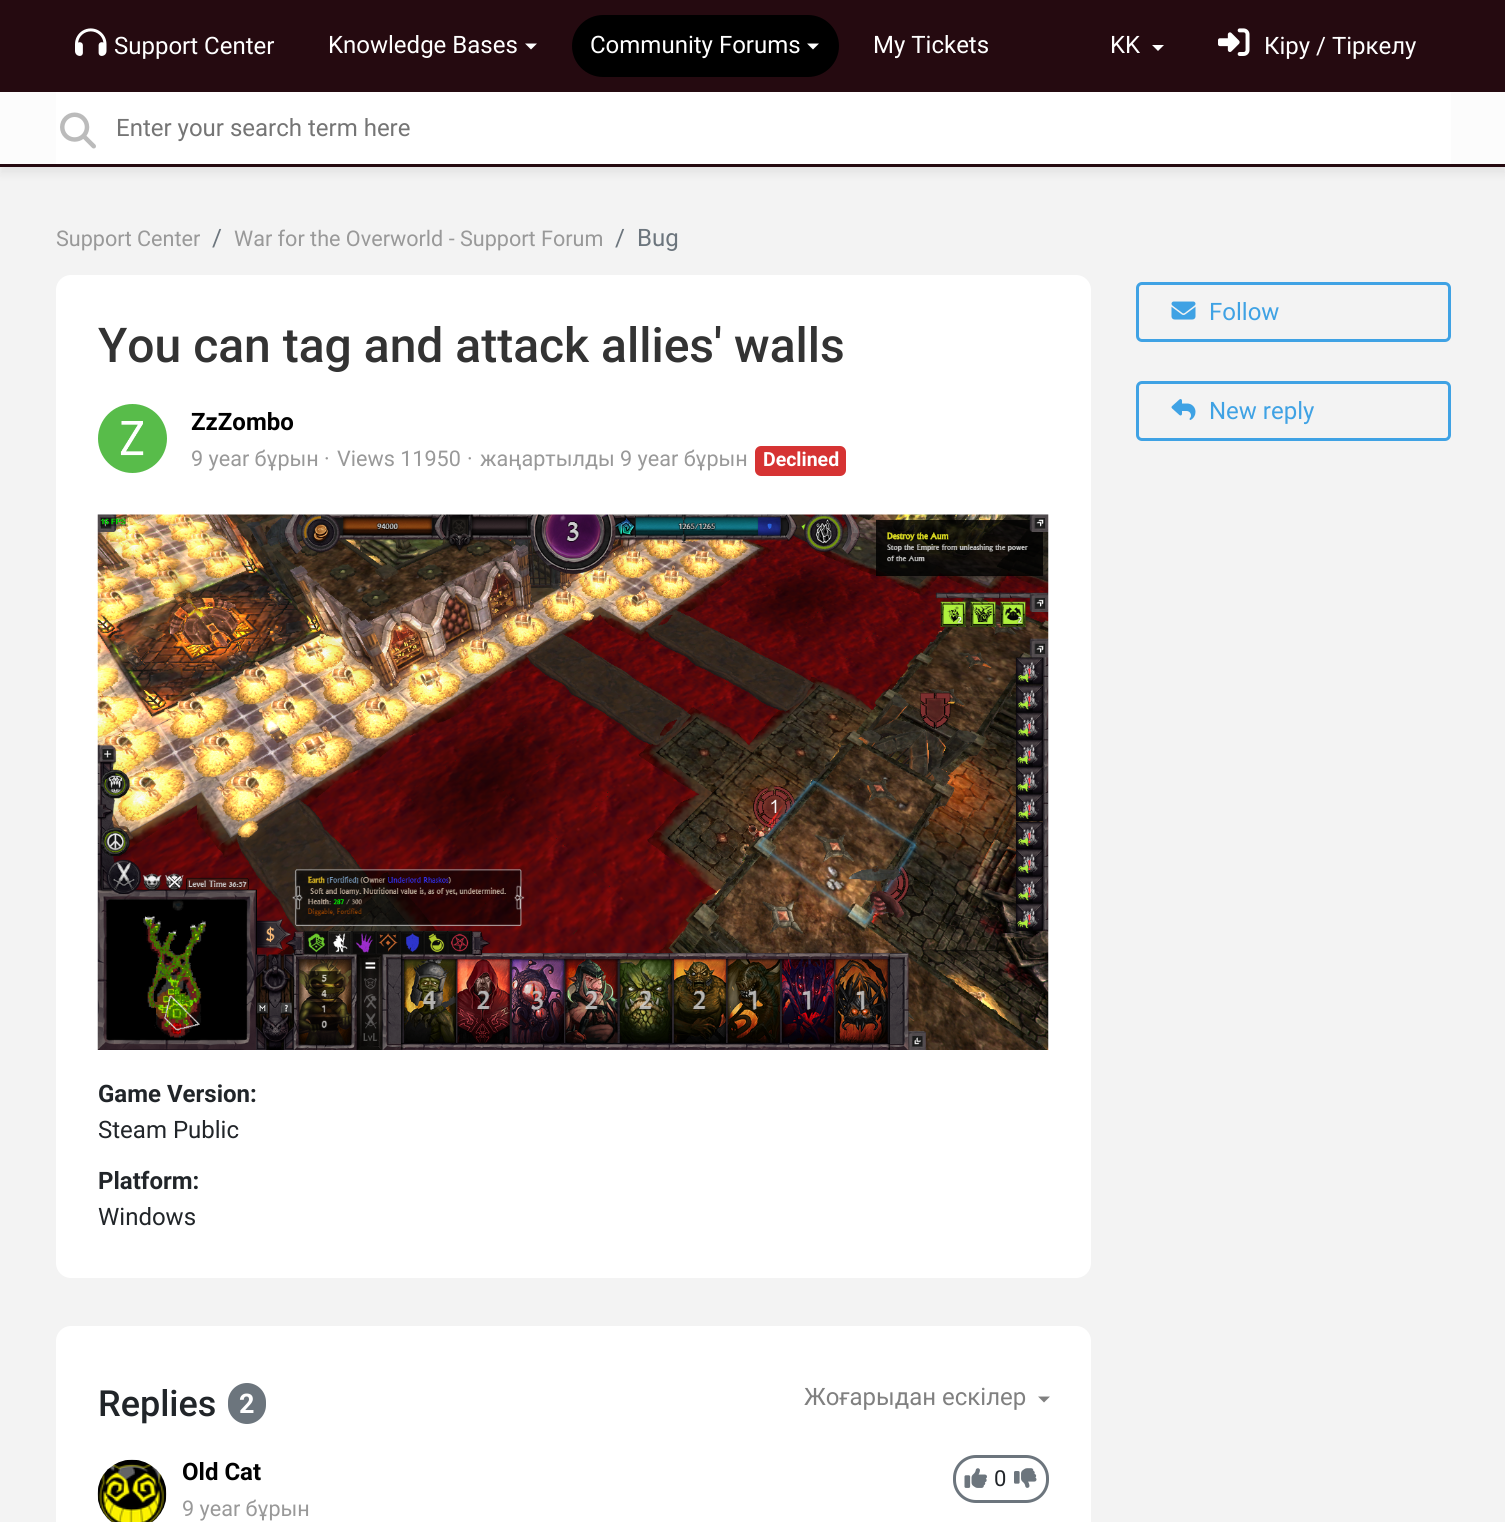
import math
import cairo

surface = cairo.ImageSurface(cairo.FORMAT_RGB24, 1505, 1522)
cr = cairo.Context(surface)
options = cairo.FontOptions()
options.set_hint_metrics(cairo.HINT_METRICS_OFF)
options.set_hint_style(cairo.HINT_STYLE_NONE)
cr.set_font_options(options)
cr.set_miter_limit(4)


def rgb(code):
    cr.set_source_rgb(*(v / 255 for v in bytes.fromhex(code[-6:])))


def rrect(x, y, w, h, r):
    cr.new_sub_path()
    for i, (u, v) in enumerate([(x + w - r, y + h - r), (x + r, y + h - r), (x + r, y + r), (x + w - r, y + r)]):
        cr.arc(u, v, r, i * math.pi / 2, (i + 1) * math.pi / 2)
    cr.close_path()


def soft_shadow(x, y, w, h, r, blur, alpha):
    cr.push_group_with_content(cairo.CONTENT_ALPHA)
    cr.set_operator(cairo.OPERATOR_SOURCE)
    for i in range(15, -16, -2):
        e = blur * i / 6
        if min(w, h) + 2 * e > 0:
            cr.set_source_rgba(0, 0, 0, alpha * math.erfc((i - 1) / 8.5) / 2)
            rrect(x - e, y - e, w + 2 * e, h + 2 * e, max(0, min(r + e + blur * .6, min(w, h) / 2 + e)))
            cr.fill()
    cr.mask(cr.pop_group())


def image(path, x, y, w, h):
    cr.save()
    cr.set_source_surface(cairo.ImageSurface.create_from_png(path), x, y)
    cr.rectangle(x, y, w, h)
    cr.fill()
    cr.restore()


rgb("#f3f3f3")
cr.paint()
rgb("#250a10")
cr.rectangle(0, 0, 1505, 92)
cr.fill()
image("img/1.png", 75, 28, 32, 28)
rgb("#ffffff")
cr.new_path()
cr.move_to(525, 43.5)
cr.line_to(537, 43.5)
cr.line_to(531, 49.5)
cr.close_path()
cr.fill()
rgb("#000000")
rrect(572, 15, 267, 62, 31)
cr.fill()
rgb("#ffffff")
cr.new_path()
cr.move_to(807, 43.5)
cr.line_to(819, 43.5)
cr.line_to(813, 49.5)
cr.close_path()
cr.fill()
cr.new_path()
cr.move_to(1152, 45)
cr.line_to(1164, 45)
cr.line_to(1158, 51)
cr.close_path()
cr.fill()
image("img/2.png", 1218, 28, 32, 28)
rgb("#646464")
soft_shadow(0, 99, 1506, 75, 0, 4, 0.1)
for x, y, w, h, color in [
    (0, 92, 1505, 72, "#fcfcfc"),
    (0, 164, 1505, 3, "#250a10"),
    (56, 92, 1395, 72, "#ffffff"),
]:
    rgb(color)
    cr.rectangle(x, y, w, h)
    cr.fill()
image("img/3.png", 60, 112, 36, 37)
rrect(56, 275, 1035, 1003, 15)
cr.fill()
rgb("#58bc4a")
cr.arc(132.5, 438.5, 34.5, 0, 2 * math.pi)
cr.fill()
image("img/4.png", 120, 421, 24, 35)
rgb("#d63333")
rrect(755, 446, 91, 30, 6)
cr.fill()
image("img/5.png", 97, 514, 952, 536)
rrect(1137.5, 283.5, 312, 57, 4.5)
rgb("#3fa2e4")
cr.set_line_width(3)
cr.stroke()
image("img/6.png", 1171, 301, 25, 19)
rrect(1137.5, 382.5, 312, 57, 4.5)
cr.stroke()
image("img/7.png", 1171, 399, 25, 21)
rgb("#ffffff")
rrect(56, 1326, 1035, 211, 15)
cr.fill()
rgb("#6c757d")
rrect(228, 1383, 38, 41, 19)
cr.fill()
rgb("#808080")
cr.new_path()
cr.move_to(1038, 1396.5)
cr.line_to(1050, 1396.5)
cr.line_to(1044, 1402.5)
cr.close_path()
cr.fill()
image("img/8.png", 97, 1459, 70, 63)
rrect(954.5, 1456.5, 93, 45, 21.5)
rgb("#6c757d")
cr.stroke()
image("img/9.png", 964, 1468, 23, 20)
image("img/10.png", 1014, 1468, 23, 20)
cr.select_font_face("Roboto")
cr.set_font_size(24)
rgb("#ffffff")
for x, y, s in [
    (114, 54, "Support Center"),
    (328, 53, "Knowledge Bases"),
    (590, 53, "Community Forums"),
    (873, 53, "My Tickets"),
    (1110, 53, "KK"),
    (1264, 54, "Кіру / Tiркелу"),
]:
    cr.move_to(x, y)
    cr.show_text(s)
rgb("#757575")
cr.move_to(116, 136)
cr.show_text("Enter your search term here")
cr.set_font_size(21.6)
rgb("#999999")
cr.move_to(56, 246)
cr.show_text("Support Center")
cr.set_font_size(24)
rgb("#6c757d")
cr.move_to(212, 246)
cr.show_text("/")
cr.set_font_size(21.6)
rgb("#999999")
cr.move_to(234, 246)
cr.show_text("War for the Overworld - Support Forum")
cr.set_font_size(24)
rgb("#6c757d")
cr.move_to(615, 246)
cr.show_text("/")
cr.move_to(637, 246)
cr.show_text("Bug")
cr.select_font_face("Roboto Medium")
cr.set_font_size(48)
rgb("#333333")
cr.move_to(98, 362)
cr.show_text("You can tag and attack allies' walls")
cr.select_font_face("Roboto", cairo.FONT_SLANT_NORMAL, cairo.FONT_WEIGHT_BOLD)
cr.set_font_size(24)
rgb("#000000")
cr.move_to(191, 430)
cr.show_text("ZzZombo")
cr.select_font_face("Roboto")
cr.set_font_size(21.6)
rgb("#999999")
for x, y, s in [
    (191, 466, "9 year бұрын"),
    (324, 466, "·"),
    (337, 466, "Views 11950"),
    (467, 466, "·"),
    (480, 466, "жаңартылды 9 year бұрын"),
]:
    cr.move_to(x, y)
    cr.show_text(s)
cr.select_font_face("Roboto", cairo.FONT_SLANT_NORMAL, cairo.FONT_WEIGHT_BOLD)
cr.set_font_size(19.5)
rgb("#ffffff")
cr.move_to(763, 466)
cr.show_text("Declined")
cr.set_font_size(24)
rgb("#212529")
cr.move_to(98, 1102)
cr.show_text("Game Version:")
cr.select_font_face("Roboto")
cr.move_to(98, 1138)
cr.show_text("Steam Public")
cr.select_font_face("Roboto", cairo.FONT_SLANT_NORMAL, cairo.FONT_WEIGHT_BOLD)
cr.move_to(98, 1189)
cr.show_text("Platform:")
cr.select_font_face("Roboto")
cr.move_to(98, 1225)
cr.show_text("Windows")
rgb("#3fa2e4")
cr.move_to(1209, 320)
cr.show_text("Follow")
cr.move_to(1209, 419)
cr.show_text("New reply")
cr.select_font_face("Roboto Medium")
cr.set_font_size(36)
rgb("#212529")
cr.move_to(98, 1416)
cr.show_text("Replies")
cr.select_font_face("Roboto", cairo.FONT_SLANT_NORMAL, cairo.FONT_WEIGHT_BOLD)
cr.set_font_size(27)
rgb("#ffffff")
cr.move_to(239, 1413)
cr.show_text("2")
cr.select_font_face("Roboto")
cr.set_font_size(24)
rgb("#808080")
cr.move_to(804, 1405)
cr.show_text("Жоғарыдан ескілер")
cr.select_font_face("Roboto", cairo.FONT_SLANT_NORMAL, cairo.FONT_WEIGHT_BOLD)
rgb("#000000")
cr.move_to(182, 1480)
cr.show_text("Old Cat")
cr.select_font_face("Roboto")
cr.set_font_size(21.6)
rgb("#999999")
cr.move_to(182, 1516)
cr.show_text("9 year бұрын")
cr.set_font_size(22)
rgb("#212529")
cr.move_to(994, 1486)
cr.show_text("0")
surface.write_to_png("page.png")
